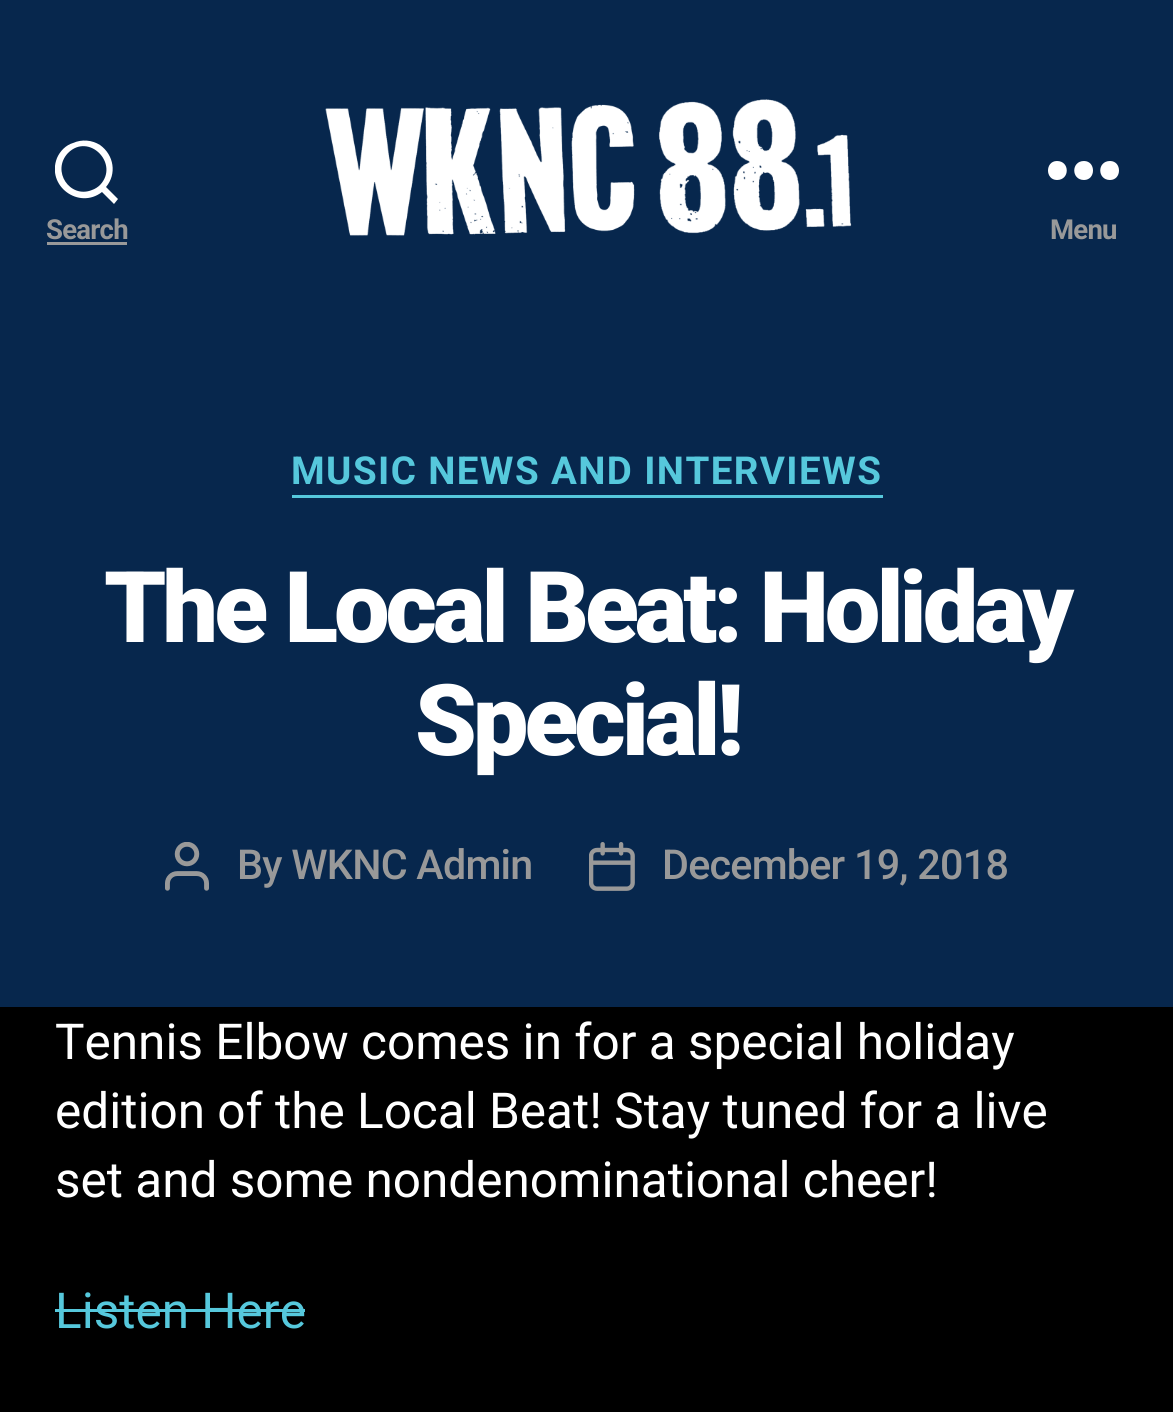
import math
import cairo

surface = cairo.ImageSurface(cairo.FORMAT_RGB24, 1173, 1412)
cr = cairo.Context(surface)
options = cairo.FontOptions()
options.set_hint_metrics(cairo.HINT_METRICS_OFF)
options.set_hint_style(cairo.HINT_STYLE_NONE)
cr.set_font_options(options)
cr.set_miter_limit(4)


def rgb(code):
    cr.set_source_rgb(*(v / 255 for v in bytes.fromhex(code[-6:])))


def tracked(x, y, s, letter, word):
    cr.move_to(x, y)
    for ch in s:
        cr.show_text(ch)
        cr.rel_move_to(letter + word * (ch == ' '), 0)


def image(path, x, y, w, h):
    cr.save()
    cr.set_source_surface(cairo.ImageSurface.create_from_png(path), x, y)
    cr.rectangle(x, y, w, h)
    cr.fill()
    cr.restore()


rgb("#000000")
cr.paint()
rgb("#07274d")
cr.rectangle(0, 0, 1173, 1007)
cr.fill()
cr.save()
cr.rectangle(55, 138, 63, 68)
cr.clip()
rgb("#ffffff")
cr.new_path()
cr.move_to(106, 187)
cr.line_to(118, 199)
cr.line_to(114, 204)
cr.line_to(102, 192)
cr.curve_to(79, 210, 46, 186, 57, 158)
cr.curve_to(60, 151, 66, 145, 73, 143)
cr.curve_to(82, 139, 92, 140, 100, 145)
cr.curve_to(114, 155, 117, 174, 106, 187)
cr.close_path()
cr.move_to(100, 185)
cr.curve_to(120, 164, 89, 132, 68, 153)
cr.curve_to(51, 171, 70, 199, 92, 190)
cr.curve_to(95, 189, 98, 187, 100, 185)
cr.close_path()
cr.fill()
cr.restore()
rgb("#999999")
cr.rectangle(47, 242, 80, 3)
cr.fill()
image("img/1.png", 325, 99, 527, 137)
rgb("#ffffff")
cr.set_fill_rule(cairo.FILL_RULE_EVEN_ODD)
cr.new_path()
cr.move_to(1057, 180)
cr.curve_to(1045, 180, 1045, 161, 1057, 161)
cr.curve_to(1070, 161, 1070, 180, 1057, 180)
cr.close_path()
cr.move_to(1084, 180)
cr.curve_to(1071, 180, 1071, 161, 1084, 161)
cr.curve_to(1096, 161, 1096, 180, 1084, 180)
cr.close_path()
cr.move_to(1110, 180)
cr.curve_to(1097, 180, 1097, 161, 1110, 161)
cr.curve_to(1122, 161, 1122, 180, 1110, 180)
cr.close_path()
cr.fill()
rgb("#56c8dc")
cr.rectangle(292, 495, 591, 3)
cr.fill()
image("img/2.png", 165, 842, 44, 49)
image("img/3.png", 589, 842, 46, 49)
cr.rectangle(55, 1309, 250, 3)
cr.fill()
cr.select_font_face("Roboto", cairo.FONT_SLANT_NORMAL, cairo.FONT_WEIGHT_BOLD)
cr.set_font_size(27.5)
rgb("#999999")
tracked(46, 239, "Search", -0.75, 0)
tracked(1050, 239, "Menu", -0.75, 0)
cr.set_font_size(38.5)
rgb("#56c8dc")
tracked(291, 484, "MUSIC NEWS AND INTERVIEWS", 1.4, 0)
cr.select_font_face("Roboto Black")
cr.set_font_size(99)
rgb("#ffffff")
tracked(104, 642, "The Local Beat: Holiday", -4.1, 0)
tracked(415, 755, "Special!", -4.1, 0)
cr.select_font_face("Roboto Medium")
cr.set_font_size(41.25)
rgb("#999999")
tracked(237, 879, "By WKNC Admin", -0.75, 0)
tracked(662, 879, "December 19, 2018", -0.75, 0)
cr.select_font_face("Roboto")
cr.set_font_size(49.5)
rgb("#ffffff")
for x, y, s in [
    (55, 1059, "Tennis Elbow comes in for a special holiday"),
    (55, 1128, "edition of the Local Beat! Stay tuned for a live"),
    (55, 1197, "set and some nondenominational cheer!"),
]:
    cr.move_to(x, y)
    cr.show_text(s)
rgb("#56c8dc")
cr.move_to(55, 1328)
cr.show_text("Listen Here")
surface.write_to_png("page.png")
